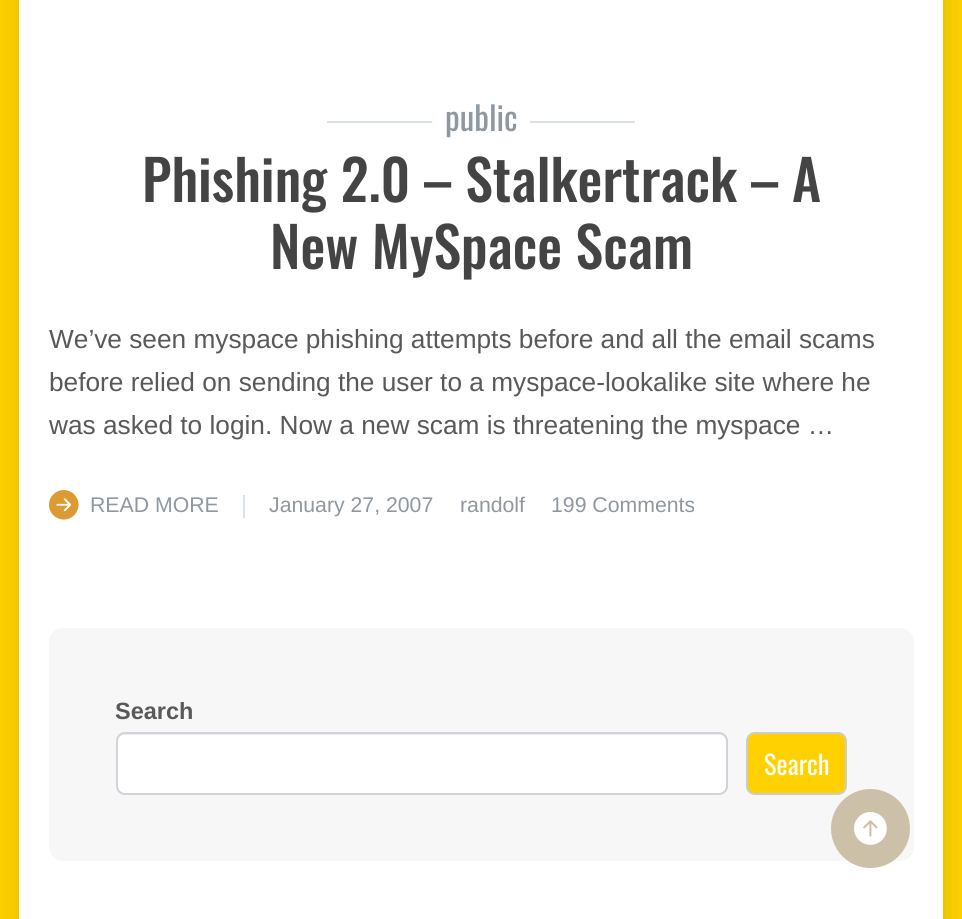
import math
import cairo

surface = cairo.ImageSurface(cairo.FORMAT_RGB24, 962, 919)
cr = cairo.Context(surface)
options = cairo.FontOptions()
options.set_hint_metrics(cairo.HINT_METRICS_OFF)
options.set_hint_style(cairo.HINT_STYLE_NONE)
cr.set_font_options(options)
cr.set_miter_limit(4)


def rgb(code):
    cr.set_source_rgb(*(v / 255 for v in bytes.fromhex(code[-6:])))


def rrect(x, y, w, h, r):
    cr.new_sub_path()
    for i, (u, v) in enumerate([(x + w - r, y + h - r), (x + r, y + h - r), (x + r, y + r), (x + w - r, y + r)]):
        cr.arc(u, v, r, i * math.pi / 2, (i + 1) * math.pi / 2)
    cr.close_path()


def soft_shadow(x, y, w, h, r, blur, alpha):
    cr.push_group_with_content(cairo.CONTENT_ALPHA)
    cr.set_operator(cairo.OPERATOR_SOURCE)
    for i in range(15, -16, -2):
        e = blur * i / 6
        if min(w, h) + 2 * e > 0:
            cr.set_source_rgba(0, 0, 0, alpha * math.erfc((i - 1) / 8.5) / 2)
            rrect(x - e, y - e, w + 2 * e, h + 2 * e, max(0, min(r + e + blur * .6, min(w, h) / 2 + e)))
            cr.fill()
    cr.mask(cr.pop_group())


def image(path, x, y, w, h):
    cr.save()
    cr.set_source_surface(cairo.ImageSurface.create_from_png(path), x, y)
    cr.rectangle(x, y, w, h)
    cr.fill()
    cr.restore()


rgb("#ffd100")
cr.paint()
rgb("#000000")
soft_shadow(35, -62, 893, 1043, 0, 20.5, 0.27)
for x, y, w, h, color in [
    (19, 0, 924, 919, "#ffffff"),
    (327, 121, 105, 2, "#dae1e8"),
    (530, 121, 105, 2, "#dae1e8"),
]:
    rgb(color)
    cr.rectangle(x, y, w, h)
    cr.fill()
image("img/1.png", 49, 490, 30, 30)
cr.rectangle(243, 495, 2, 23)
cr.fill()
rgb("#f7f7f7")
rrect(49, 628, 865, 233, 14)
cr.fill()
rgb("#ffffff")
rrect(117, 733, 609, 60, 7)
cr.fill()
cr.set_source_rgba(0, 0, 0, 0.07)
cr.new_path()
cr.move_to(124, 735)
cr.line_to(720, 735)
cr.curve_to(723, 735, 726, 738, 726, 741)
cr.line_to(726, 740)
cr.curve_to(726, 736, 723, 733, 719, 733)
cr.line_to(124, 733)
cr.curve_to(120, 733, 117, 736, 117, 740)
cr.line_to(117, 741)
cr.curve_to(117, 738, 120, 735, 124, 735)
cr.close_path()
cr.fill()
rrect(117, 733, 610, 61, 8)
rgb("#ced4da")
cr.stroke()
rgb("#ffd100")
rrect(747, 733, 99, 61, 8)
cr.fill_preserve()
rgb("#cccccc")
cr.stroke()
rgb("#cdc0a9")
cr.arc(870.5, 828.5, 39.5, 0, 2 * math.pi)
cr.fill()
image("img/2.png", 854, 812, 33, 33)
cr.select_font_face("Oswald")
cr.set_font_size(33)
rgb("#8f97a0")
cr.move_to(445, 131)
cr.show_text("public")
cr.select_font_face("Oswald Medium")
cr.set_font_size(55.75)
rgb("#444444")
cr.move_to(142, 202)
cr.show_text("Phishing 2.0 – Stalkertrack – A")
cr.move_to(270, 269)
cr.show_text("New MySpace Scam")
cr.select_font_face("Liberation Sans")
cr.set_font_size(26.25)
rgb("#595959")
for x, y, s in [
    (49, 348, "We’ve seen myspace phishing attempts before and all the email scams"),
    (49, 391, "before relied on sending the user to a myspace-lookalike site where he"),
    (49, 434, "was asked to login. Now a new scam is threatening the myspace …"),
]:
    cr.move_to(x, y)
    cr.show_text(s)
cr.set_font_size(21.25)
rgb("#8f97a0")
for x, y, s in [
    (90, 512, "READ MORE"),
    (269, 512, "January 27, 2007"),
    (460, 512, "randolf"),
    (551, 512, "199 Comments"),
]:
    cr.move_to(x, y)
    cr.show_text(s)
cr.select_font_face("Liberation Sans", cairo.FONT_SLANT_NORMAL, cairo.FONT_WEIGHT_BOLD)
cr.set_font_size(23.5)
rgb("#595959")
cr.move_to(115, 719)
cr.show_text("Search")
cr.select_font_face("Oswald")
cr.set_font_size(26.25)
rgb("#ffffff")
cr.move_to(764, 775)
cr.show_text("Search")
surface.write_to_png("page.png")
